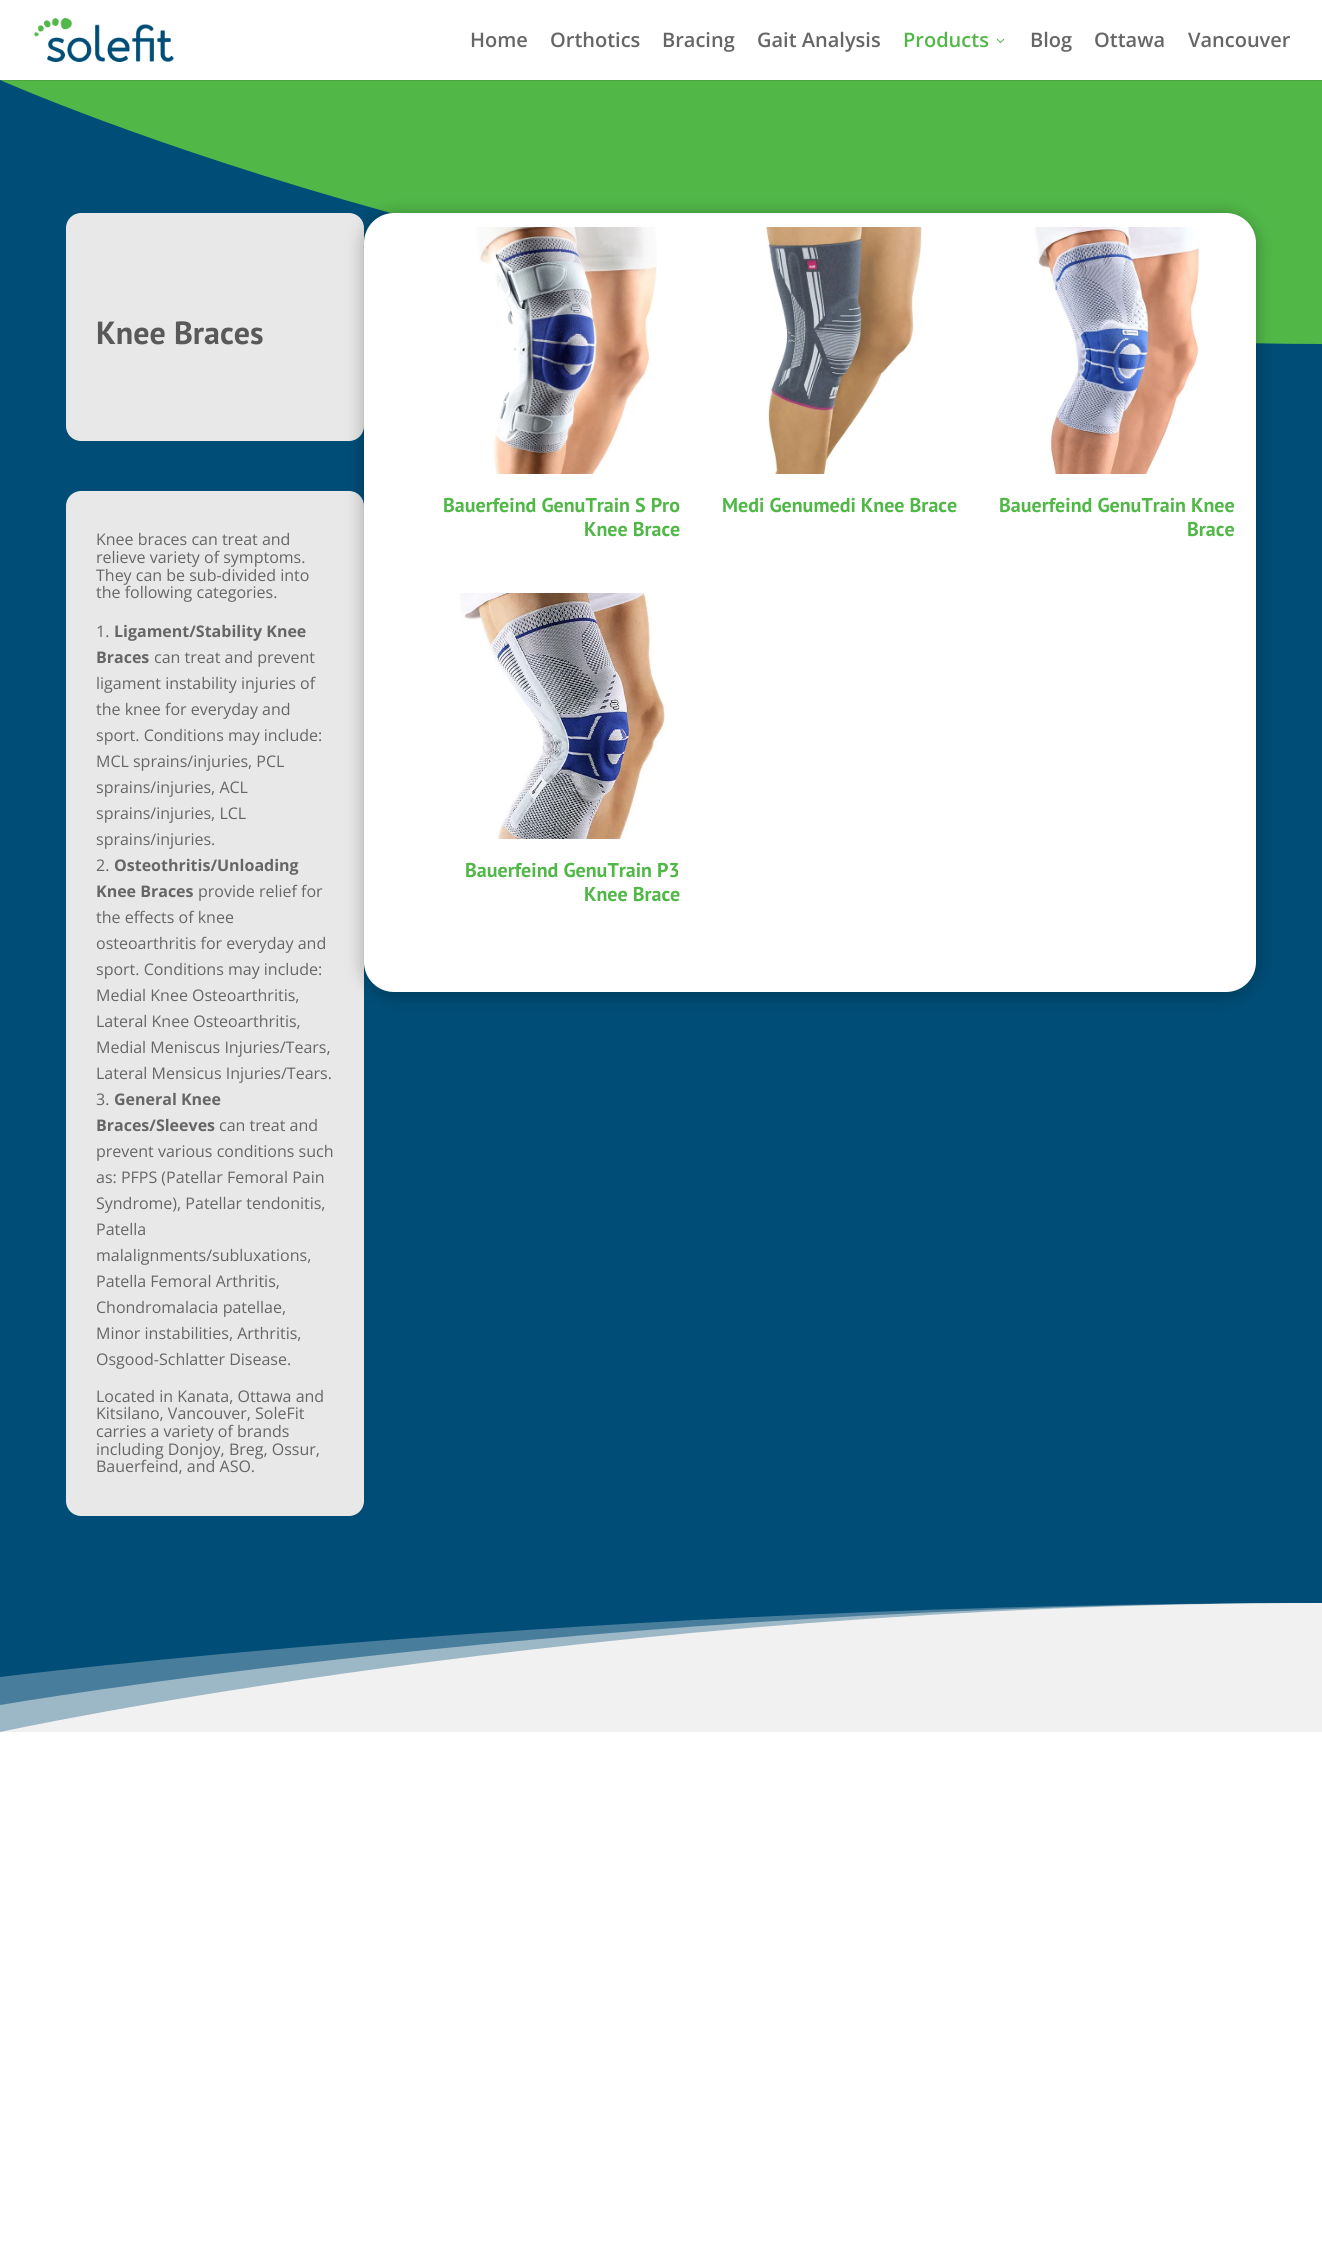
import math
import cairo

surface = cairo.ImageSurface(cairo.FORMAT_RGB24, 1322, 2246)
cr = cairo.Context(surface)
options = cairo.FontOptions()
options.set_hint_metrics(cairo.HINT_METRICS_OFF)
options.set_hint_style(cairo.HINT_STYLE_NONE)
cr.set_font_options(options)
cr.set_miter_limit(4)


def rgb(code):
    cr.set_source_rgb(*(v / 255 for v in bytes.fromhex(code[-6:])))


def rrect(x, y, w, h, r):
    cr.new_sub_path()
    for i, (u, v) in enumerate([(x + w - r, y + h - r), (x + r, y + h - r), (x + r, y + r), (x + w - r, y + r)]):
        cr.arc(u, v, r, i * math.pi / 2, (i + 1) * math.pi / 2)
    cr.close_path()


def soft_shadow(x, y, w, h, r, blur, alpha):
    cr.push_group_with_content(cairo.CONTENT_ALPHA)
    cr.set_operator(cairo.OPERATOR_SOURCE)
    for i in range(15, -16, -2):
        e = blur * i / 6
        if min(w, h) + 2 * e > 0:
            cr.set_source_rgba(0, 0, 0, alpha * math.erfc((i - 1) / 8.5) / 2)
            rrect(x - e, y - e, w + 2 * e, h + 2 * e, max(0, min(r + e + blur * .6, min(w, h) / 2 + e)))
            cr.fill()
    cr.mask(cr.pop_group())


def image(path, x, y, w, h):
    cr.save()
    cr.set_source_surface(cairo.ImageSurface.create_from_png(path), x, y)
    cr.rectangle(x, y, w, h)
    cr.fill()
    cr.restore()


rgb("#ffffff")
cr.paint()
rgb("#004d77")
cr.rectangle(0, 80, 1322, 1597)
cr.fill()
rgb("#51b848")
cr.new_path()
cr.move_to(0, 80)
cr.curve_to(0, 80, 592, 344, 1322, 344)
cr.line_to(1322, 80)
cr.close_path()
cr.fill()
cr.set_source_rgba(0, 0, 0, 0.1)
cr.rectangle(0, 80, 1322, 1)
cr.fill()
image("img/1.png", 34, 18, 140, 44)
image("img/2.png", 996, 38, 9, 5)
rgb("#e8e8e8")
rrect(66, 213, 298, 228, 15)
cr.fill()
rrect(66, 491, 298, 1025, 15)
cr.fill()
rgb("#000000")
soft_shadow(364, 215, 892, 779, 30, 9, 0.3)
rgb("#ffffff")
rrect(364, 213, 892, 779, 30)
cr.fill()
image("img/3.png", 476, 227, 181, 247)
image("img/4.png", 765, 227, 157, 247)
image("img/5.png", 1035, 227, 165, 247)
image("img/6.png", 459, 593, 208, 246)
rgb("#487e9c")
cr.new_path()
cr.move_to(0, 1732)
cr.line_to(0, 1677)
cr.curve_to(0, 1677, 592, 1603, 1322, 1603)
cr.line_to(1322, 1732)
cr.close_path()
cr.fill()
cr.set_source_rgba(0.945, 0.945, 0.945, 0.5)
cr.new_path()
cr.move_to(0, 1732)
cr.line_to(0, 1705)
cr.curve_to(0, 1705, 592, 1603, 1322, 1603)
cr.line_to(1322, 1732)
cr.close_path()
cr.fill()
rgb("#f1f1f1")
cr.new_path()
cr.move_to(0, 1732)
cr.curve_to(0, 1732, 592, 1603, 1322, 1603)
cr.line_to(1322, 1732)
cr.close_path()
cr.fill()
cr.select_font_face("Open Sans SemiBold")
cr.set_font_size(20)
rgb("#666666")
for x, y, s in [
    (470, 47, "Home"),
    (550, 47, "Orthotics"),
    (662, 47, "Bracing"),
    (757, 47, "Gait Analysis"),
]:
    cr.move_to(x, y)
    cr.show_text(s)
rgb("#51b848")
cr.move_to(903, 47)
cr.show_text("Products")
rgb("#666666")
for x, y, s in [
    (1030, 47, "Blog"),
    (1094, 47, "Ottawa"),
    (1188, 47, "Vancouver"),
]:
    cr.move_to(x, y)
    cr.show_text(s)
cr.select_font_face("PT Sans", cairo.FONT_SLANT_NORMAL, cairo.FONT_WEIGHT_BOLD)
cr.set_font_size(32)
rgb("#595959")
cr.move_to(96, 344)
cr.show_text("Knee Braces")
cr.select_font_face("Open Sans")
cr.set_font_size(16)
rgb("#666666")
for x, y, s in [
    (96, 545, "Knee braces can treat and"),
    (96, 563, "relieve variety of symptoms."),
    (96, 581, "They can be sub-divided into"),
    (96, 598, "the following categories."),
    (96, 637, "1."),
]:
    cr.move_to(x, y)
    cr.show_text(s)
cr.select_font_face("Open Sans", cairo.FONT_SLANT_NORMAL, cairo.FONT_WEIGHT_BOLD)
cr.move_to(114, 637)
cr.show_text("Ligament/Stability Knee")
cr.move_to(96, 663)
cr.show_text("Braces")
cr.select_font_face("Open Sans")
for x, y, s in [
    (154, 663, "can treat and prevent"),
    (96, 689, "ligament instability injuries of"),
    (96, 715, "the knee for everyday and"),
    (96, 741, "sport. Conditions may include:"),
    (96, 767, "MCL sprains/injuries, PCL"),
    (96, 793, "sprains/injuries, ACL"),
    (96, 819, "sprains/injuries, LCL"),
    (96, 845, "sprains/injuries."),
    (96, 871, "2."),
]:
    cr.move_to(x, y)
    cr.show_text(s)
cr.select_font_face("Open Sans", cairo.FONT_SLANT_NORMAL, cairo.FONT_WEIGHT_BOLD)
cr.move_to(114, 871)
cr.show_text("Osteothritis/Unloading")
cr.move_to(96, 897)
cr.show_text("Knee Braces")
cr.select_font_face("Open Sans")
for x, y, s in [
    (198, 897, "provide relief for"),
    (96, 923, "the effects of knee"),
    (96, 949, "osteoarthritis for everyday and"),
    (96, 975, "sport. Conditions may include:"),
    (96, 1001, "Medial Knee Osteoarthritis,"),
    (96, 1027, "Lateral Knee Osteoarthritis,"),
    (96, 1053, "Medial Meniscus Injuries/Tears,"),
    (96, 1079, "Lateral Mensicus Injuries/Tears."),
    (96, 1105, "3."),
]:
    cr.move_to(x, y)
    cr.show_text(s)
cr.select_font_face("Open Sans", cairo.FONT_SLANT_NORMAL, cairo.FONT_WEIGHT_BOLD)
cr.move_to(114, 1105)
cr.show_text("General Knee")
cr.move_to(96, 1131)
cr.show_text("Braces/Sleeves")
cr.select_font_face("Open Sans")
for x, y, s in [
    (219, 1131, "can treat and"),
    (96, 1157, "prevent various conditions such"),
    (96, 1183, "as: PFPS (Patellar Femoral Pain"),
    (96, 1209, "Syndrome), Patellar tendonitis,"),
    (96, 1235, "Patella"),
    (96, 1261, "malalignments/subluxations,"),
    (96, 1287, "Patella Femoral Arthritis,"),
    (96, 1313, "Chondromalacia patellae,"),
    (96, 1339, "Minor instabilities, Arthritis,"),
    (96, 1365, "Osgood-Schlatter Disease."),
    (96, 1402, "Located in Kanata, Ottawa and"),
    (96, 1419, "Kitsilano, Vancouver, SoleFit"),
    (96, 1437, "carries a variety of brands"),
    (96, 1455, "including Donjoy, Breg, Ossur,"),
    (96, 1472, "Bauerfeind, and ASO."),
]:
    cr.move_to(x, y)
    cr.show_text(s)
cr.select_font_face("PT Sans", cairo.FONT_SLANT_NORMAL, cairo.FONT_WEIGHT_BOLD)
cr.set_font_size(20)
rgb("#51b848")
for x, y, s in [
    (443, 512, "Bauerfeind GenuTrain S Pro"),
    (584, 536, "Knee Brace"),
    (722, 512, "Medi Genumedi Knee Brace"),
    (999, 512, "Bauerfeind GenuTrain Knee"),
    (1187, 536, "Brace"),
    (465, 877, "Bauerfeind GenuTrain P3"),
    (584, 901, "Knee Brace"),
]:
    cr.move_to(x, y)
    cr.show_text(s)
surface.write_to_png("page.png")
